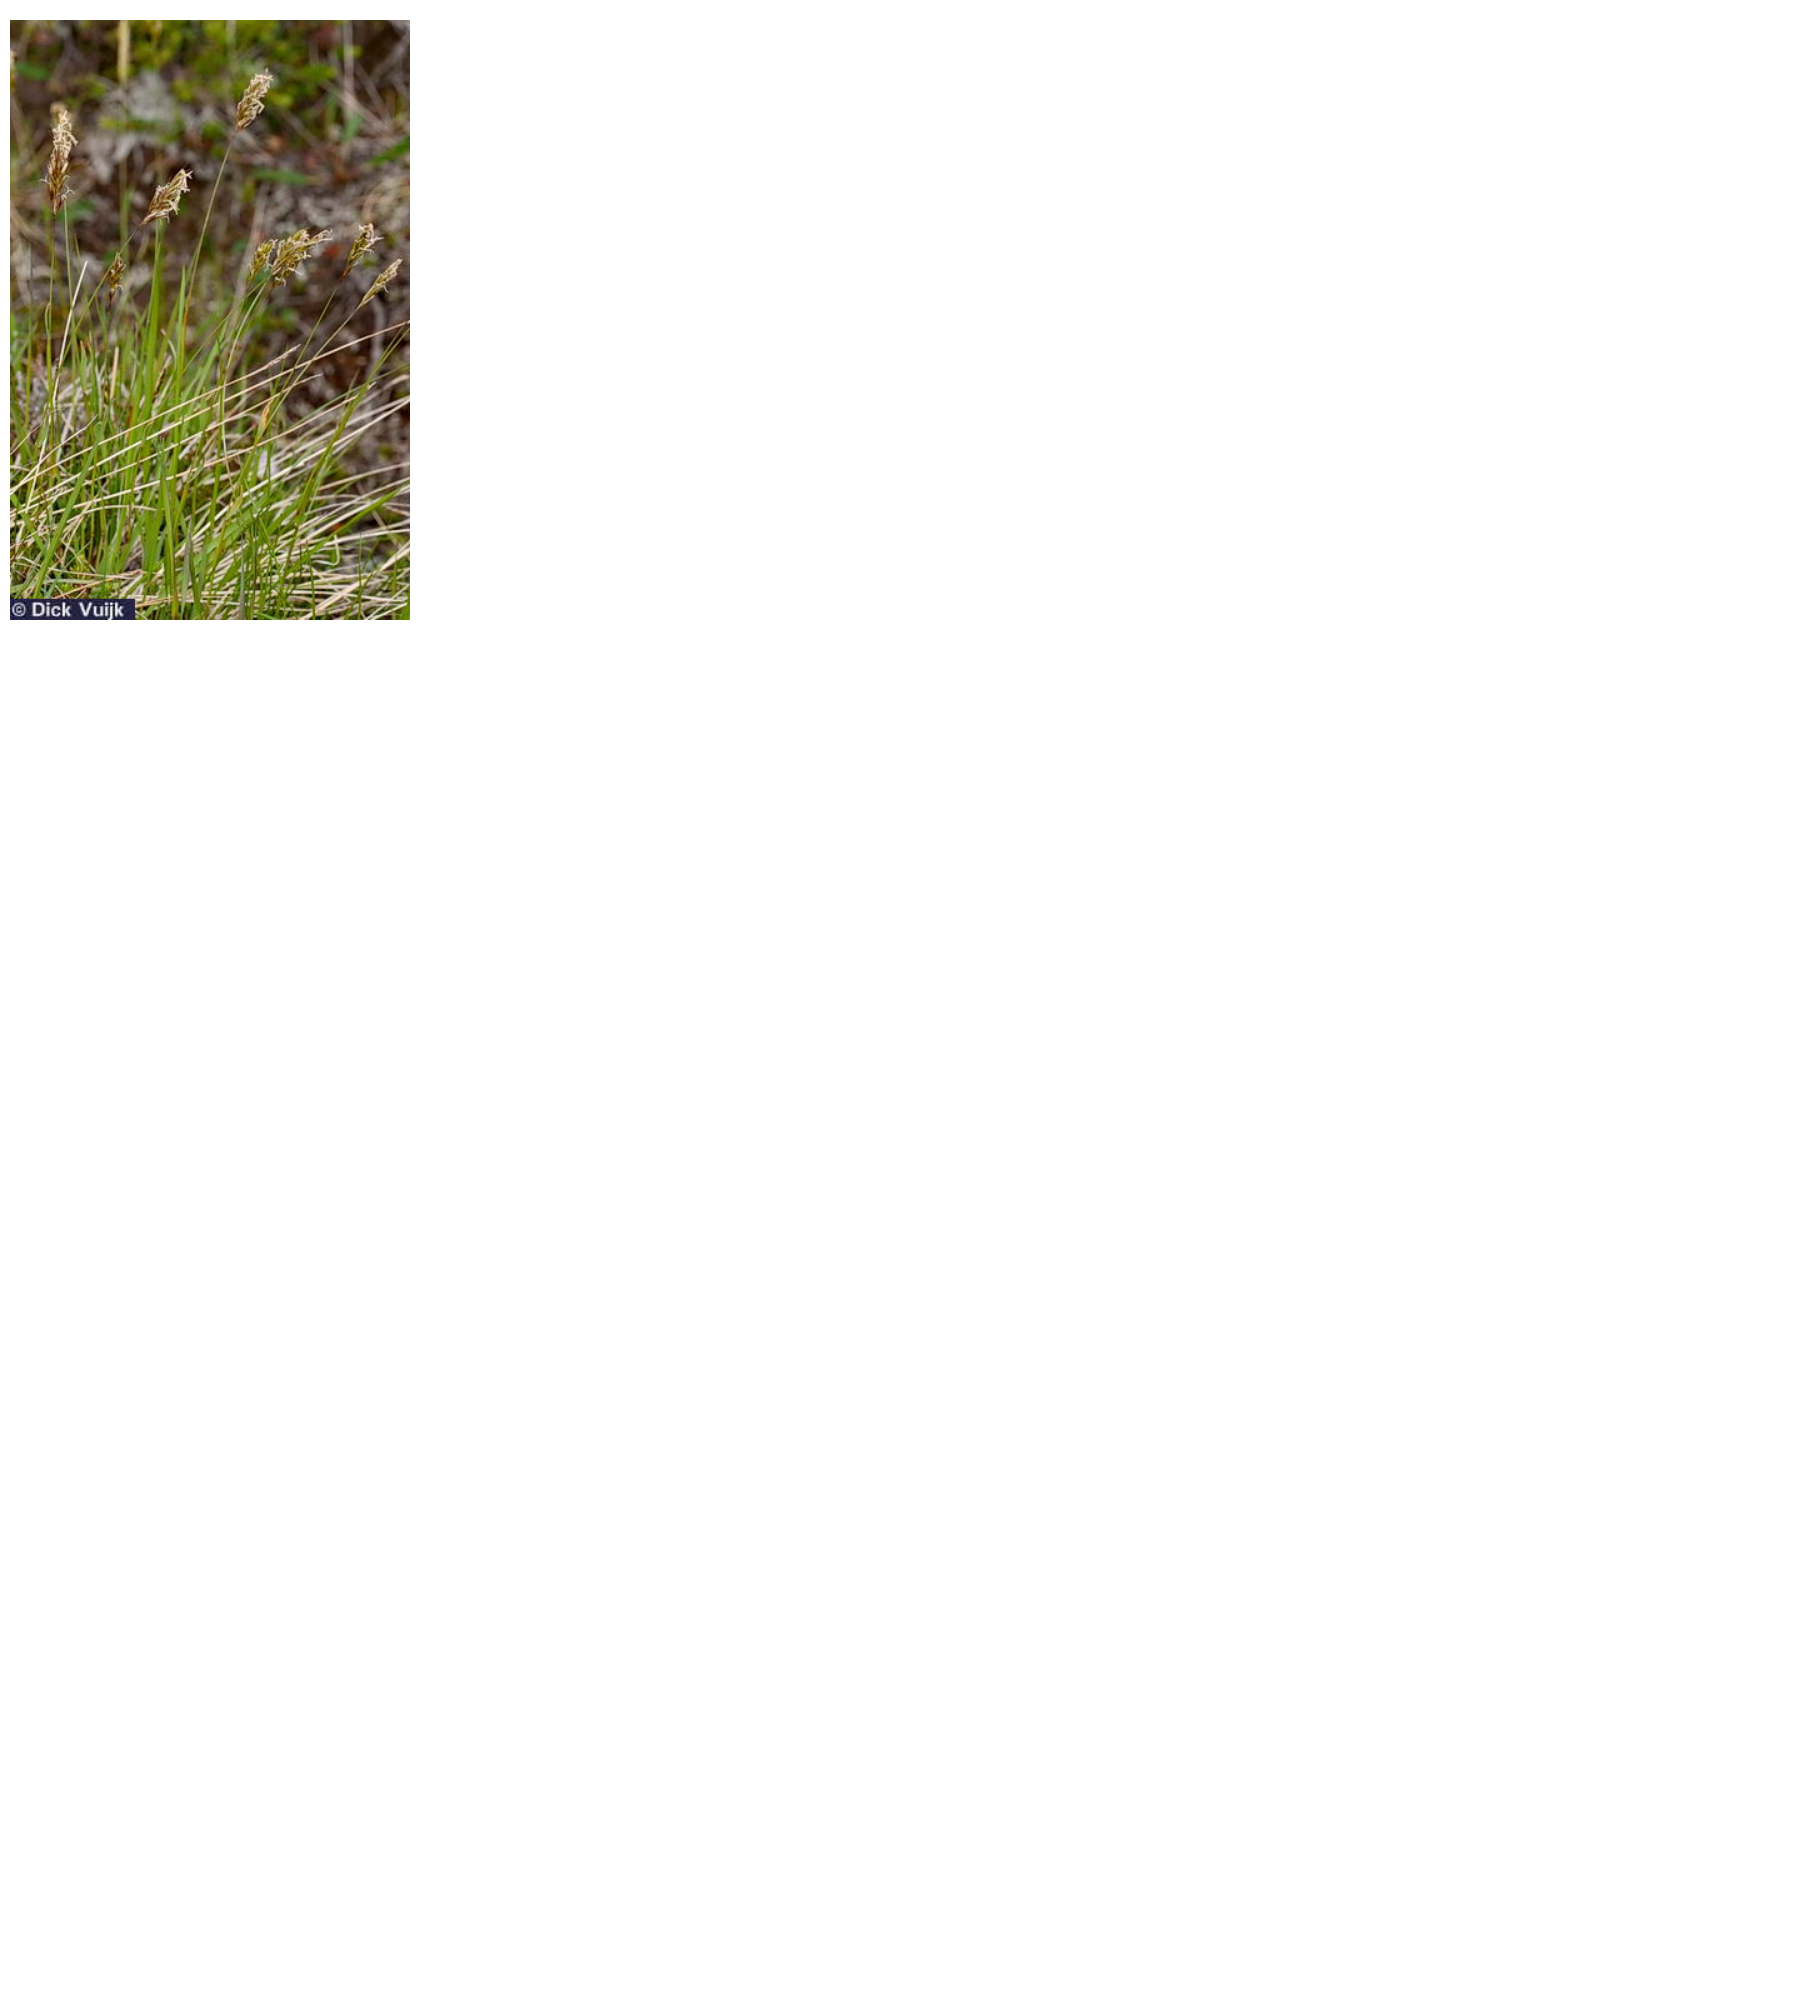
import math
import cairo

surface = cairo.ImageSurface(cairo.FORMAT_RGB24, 1818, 2000)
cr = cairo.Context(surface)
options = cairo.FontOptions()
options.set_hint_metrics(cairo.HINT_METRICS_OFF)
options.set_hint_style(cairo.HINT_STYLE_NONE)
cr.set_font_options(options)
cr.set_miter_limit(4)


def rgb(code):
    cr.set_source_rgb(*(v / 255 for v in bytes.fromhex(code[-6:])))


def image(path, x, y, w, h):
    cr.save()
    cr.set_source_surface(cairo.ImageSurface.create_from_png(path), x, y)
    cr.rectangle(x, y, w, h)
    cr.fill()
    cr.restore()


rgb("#ffffff")
cr.paint()
image("img/1.png", 10, 20, 400, 600)
surface.write_to_png("page.png")
